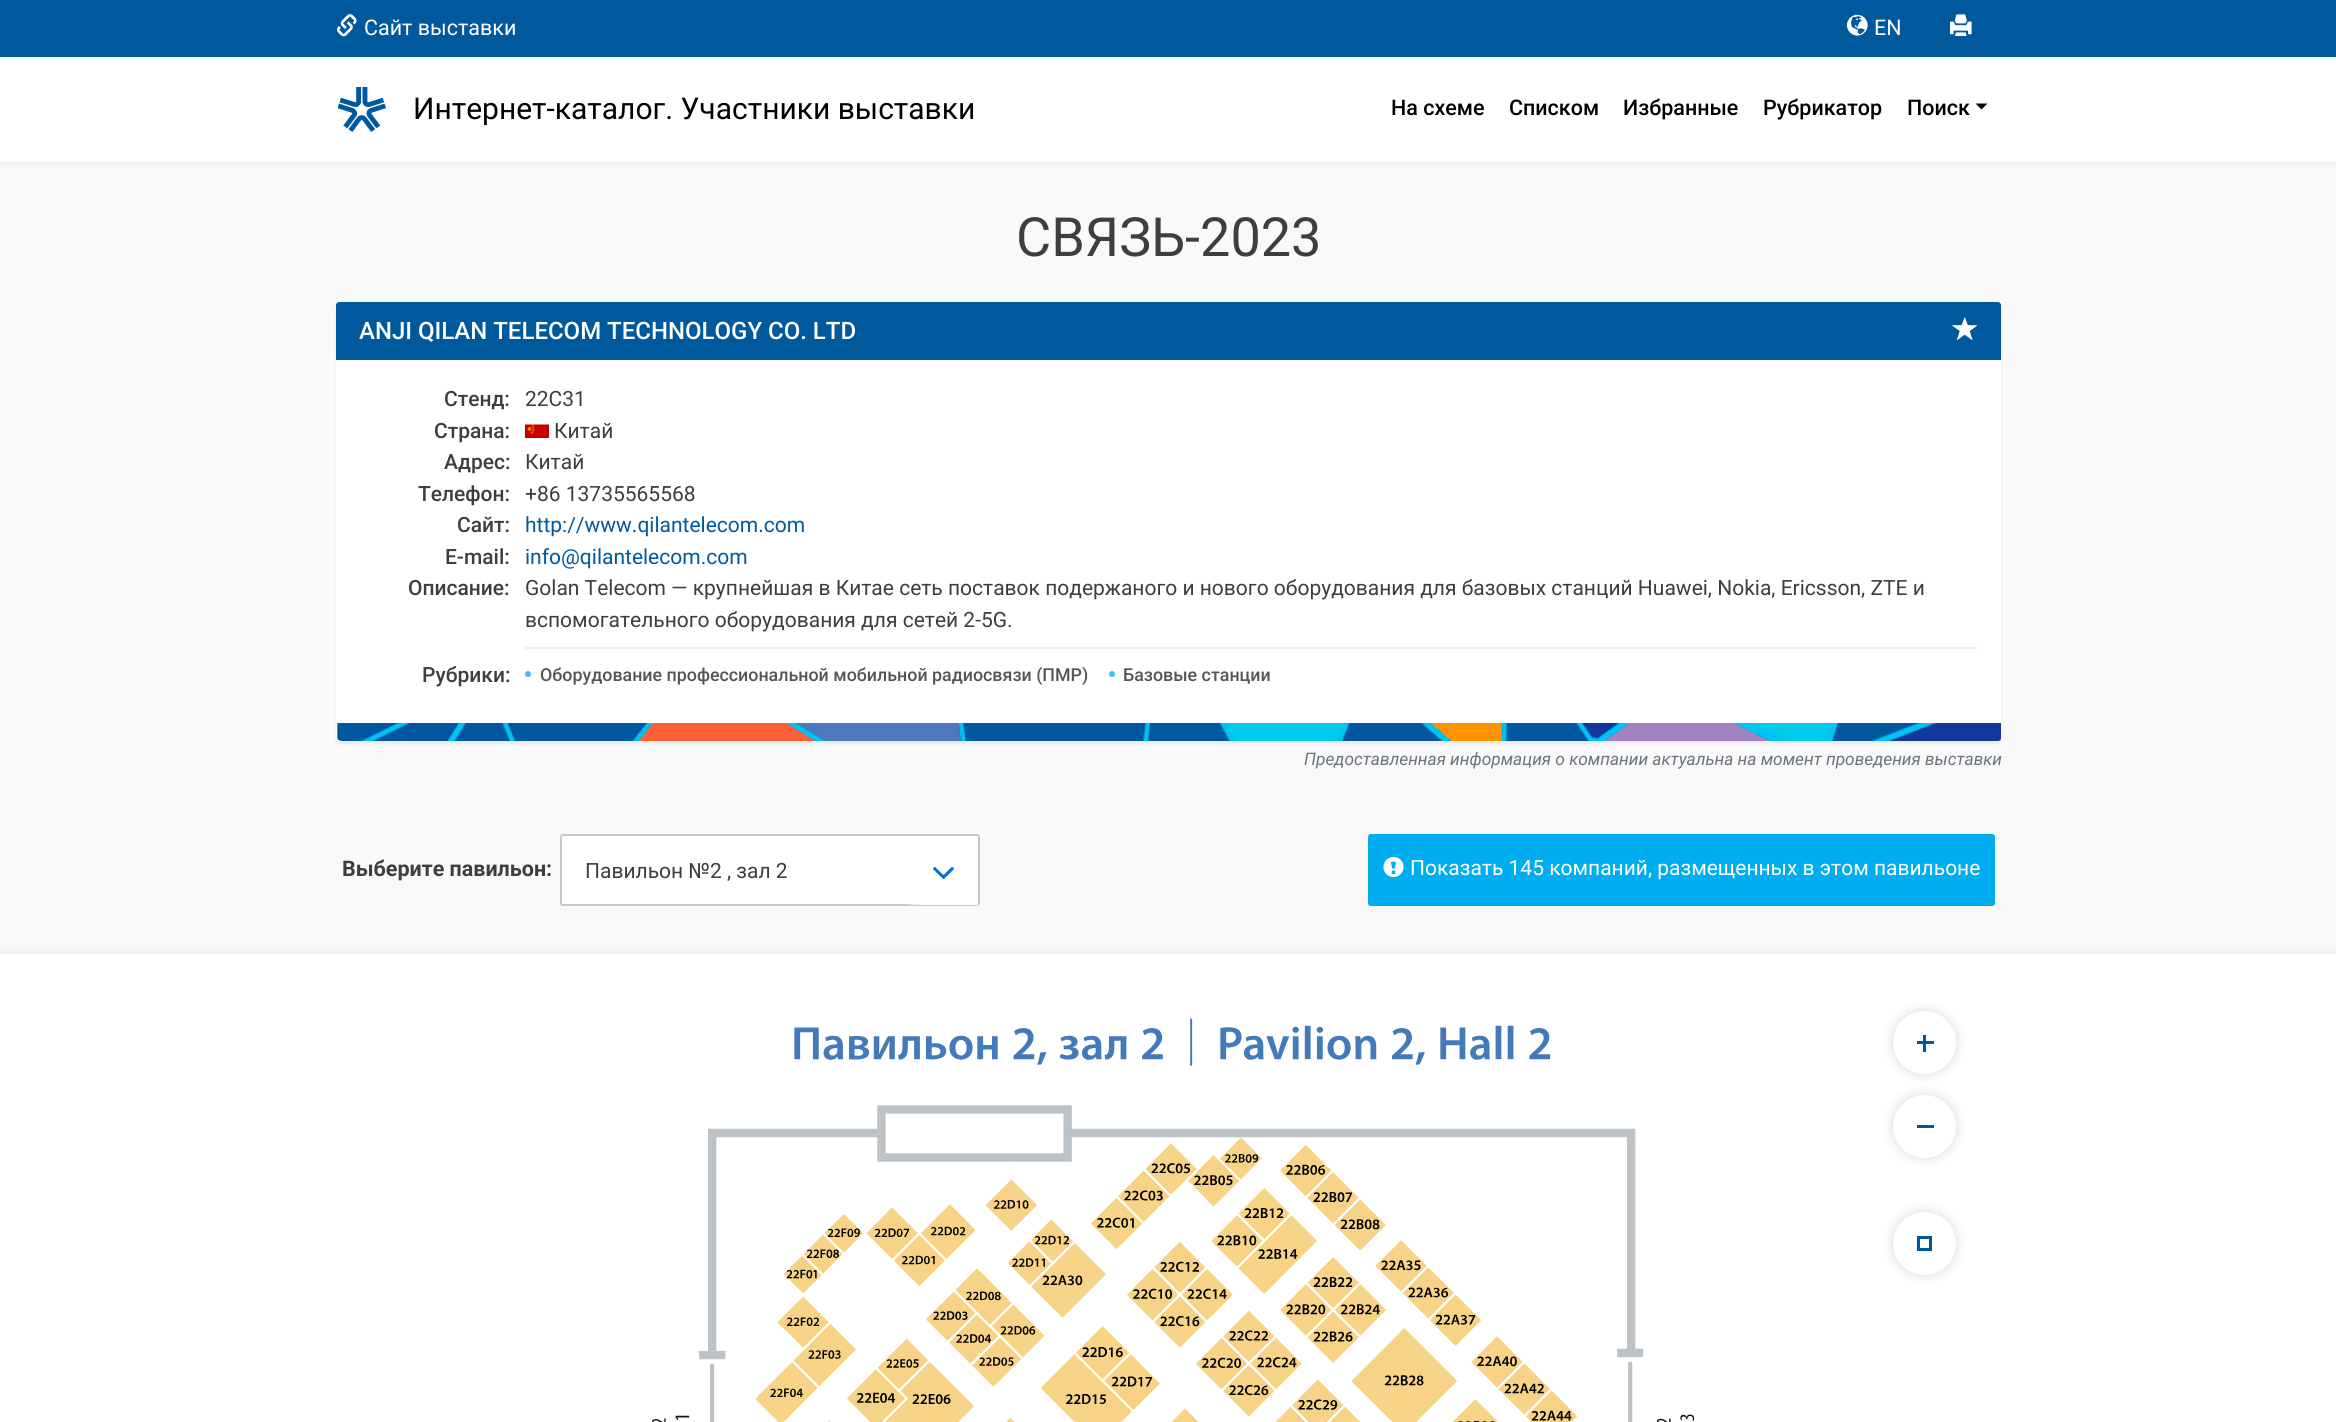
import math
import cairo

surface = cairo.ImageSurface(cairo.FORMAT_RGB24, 2336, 1422)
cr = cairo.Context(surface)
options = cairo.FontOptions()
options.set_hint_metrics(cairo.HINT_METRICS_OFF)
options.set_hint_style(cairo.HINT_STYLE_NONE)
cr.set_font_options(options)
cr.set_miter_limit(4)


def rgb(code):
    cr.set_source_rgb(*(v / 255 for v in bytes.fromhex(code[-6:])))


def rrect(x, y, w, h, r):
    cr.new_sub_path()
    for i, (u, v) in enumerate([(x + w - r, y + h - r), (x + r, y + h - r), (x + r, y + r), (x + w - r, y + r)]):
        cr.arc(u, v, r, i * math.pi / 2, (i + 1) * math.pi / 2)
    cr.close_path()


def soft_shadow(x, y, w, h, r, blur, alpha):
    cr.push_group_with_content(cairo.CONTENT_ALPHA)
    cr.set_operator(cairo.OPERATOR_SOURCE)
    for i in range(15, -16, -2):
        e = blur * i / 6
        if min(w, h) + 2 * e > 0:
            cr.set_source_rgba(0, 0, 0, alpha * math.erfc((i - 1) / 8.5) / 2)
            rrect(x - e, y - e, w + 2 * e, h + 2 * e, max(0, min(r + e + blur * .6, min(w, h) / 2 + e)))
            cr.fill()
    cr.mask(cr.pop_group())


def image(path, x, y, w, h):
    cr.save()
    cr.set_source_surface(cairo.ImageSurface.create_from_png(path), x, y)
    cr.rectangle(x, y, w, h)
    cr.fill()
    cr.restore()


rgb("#f9f9f9")
cr.paint()
rgb("#000000")
soft_shadow(0, 2, 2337, 162, 0, 4, 0.07)
rgb("#ffffff")
cr.rectangle(0, 57, 2336, 105)
cr.fill()
rgb("#00599d")
cr.rectangle(0, 0, 2336, 57)
cr.fill()
image("img/1.png", 337, 14, 20, 23)
image("img/2.png", 1846, 14, 22, 22)
image("img/3.png", 1950, 14, 22, 22)
image("img/4.png", 338, 87, 48, 45)
rgb("#000000")
cr.new_path()
cr.move_to(1975.5, 103.5)
cr.line_to(1987.5, 103.5)
cr.line_to(1981.5, 109.5)
cr.close_path()
cr.fill()
rgb("#000000")
soft_shadow(336, 305, 1665, 439, 3, 1.5, 0.06)
rgb("#ffffff")
rrect(336, 302, 1665, 439, 3)
cr.fill()
rgb("#00599d")
cr.new_path()
cr.move_to(339, 302)
cr.line_to(1998, 302)
cr.curve_to(1999.5, 302, 2001, 303.5, 2001, 305)
cr.line_to(2001, 360)
cr.line_to(336, 360)
cr.line_to(336, 305)
cr.curve_to(336, 303.5, 337.5, 302, 339, 302)
cr.close_path()
cr.fill()
image("img/5.png", 1952, 317, 26, 23)
image("img/6.png", 525, 424, 24, 14)
rgb("#eeeeee")
cr.rectangle(525, 647, 1452, 2)
cr.fill()
rgb("#40bfef")
cr.arc(528, 674, 3, 0, 2 * math.pi)
cr.fill()
cr.arc(1112, 674, 3, 0, 2 * math.pi)
cr.fill()
image("img/7.png", 337, 723, 1664, 18)
rgb("#ffffff")
rrect(561, 835, 418, 70, 2)
cr.fill_preserve()
rgb("#c4c7cc")
cr.stroke()
gradient = cairo.LinearGradient(903, 873, 978, 873)
gradient.add_color_stop_rgba(0, 1, 1, 1, 0)
gradient.add_color_stop_rgba(0.01, 1, 1, 1, 0)
gradient.add_color_stop_rgba(0.13, 1, 1, 1, 0.56)
gradient.add_color_stop_rgba(0.29, 1, 1, 1, 1)
gradient.add_color_stop_rgba(1, 1, 1, 1, 1)
cr.set_source(gradient)
cr.new_path()
cr.move_to(903, 836)
cr.line_to(976.5, 836)
cr.curve_to(977.5, 836, 978, 836.5, 978, 837.5)
cr.line_to(978, 903.5)
cr.curve_to(978, 904.5, 977.5, 905, 976.5, 905)
cr.line_to(903, 905)
cr.close_path()
cr.fill()
image("img/8.png", 933, 867, 21, 12)
rgb("#00adee")
rrect(1368, 834, 627, 72, 3)
cr.fill()
image("img/9.png", 1383, 856, 21, 22)
rgb("#000000")
soft_shadow(0, 953, 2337, 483, 0, 4.5, 0.07)
rgb("#ffffff")
cr.rectangle(0, 954, 2336, 468)
cr.fill()
image("img/10.png", 652, 1018, 1043, 404)
rgb("#000000")
soft_shadow(1893, 1011, 63, 63, 31.5, 6, 0.15)
rgb("#ffffff")
cr.arc(1924.5, 1042.5, 31.5, 0, 2 * math.pi)
cr.fill()
rgb("#00589c")
cr.rectangle(1917, 1041, 17, 3)
cr.fill()
cr.rectangle(1923, 1035, 3, 17)
cr.fill()
rgb("#000000")
soft_shadow(1893, 1095, 63, 63, 31.5, 6, 0.15)
rgb("#ffffff")
cr.arc(1924.5, 1126.5, 31.5, 0, 2 * math.pi)
cr.fill()
rgb("#00589c")
cr.rectangle(1917, 1125, 17, 3)
cr.fill()
rgb("#000000")
soft_shadow(1893, 1212, 63, 63, 31.5, 6, 0.15)
rgb("#ffffff")
cr.arc(1924.5, 1243.5, 31.5, 0, 2 * math.pi)
cr.fill()
rgb("#00589c")
cr.rectangle(1917, 1236, 15, 15)
cr.fill()
rgb("#ffffff")
cr.rectangle(1920, 1239, 9, 9)
cr.fill()
cr.select_font_face("Roboto")
cr.set_font_size(21.5)
cr.move_to(364, 35)
cr.show_text("Сайт выставки")
cr.move_to(1874, 35)
cr.show_text("EN")
cr.set_font_size(30)
rgb("#000000")
cr.move_to(413, 119)
cr.show_text("Интернет-каталог. Участники выставки")
cr.select_font_face("Roboto Medium")
cr.set_font_size(21.5)
for x, y, s in [
    (1391, 115, "На схеме"),
    (1509, 115, "Списком"),
    (1623, 115, "Избранные"),
    (1763, 115, "Рубрикатор"),
    (1907, 115, "Поиск"),
]:
    cr.move_to(x, y)
    cr.show_text(s)
cr.select_font_face("Roboto")
cr.set_font_size(54)
rgb("#3e3e3e")
cr.move_to(1016, 256)
cr.show_text("СВЯЗЬ-2023")
cr.select_font_face("Roboto Medium")
cr.set_font_size(24)
rgb("#ffffff")
cr.move_to(359, 339)
cr.show_text("ANJI QILAN TELECOM TECHNOLOGY CO. LTD")
cr.set_font_size(21)
rgb("#3e3e3e")
cr.move_to(444, 406)
cr.show_text("Стенд:")
cr.select_font_face("Roboto")
cr.move_to(525, 406)
cr.show_text("22C31")
cr.select_font_face("Roboto Medium")
cr.move_to(434, 438)
cr.show_text("Страна:")
cr.select_font_face("Roboto")
cr.move_to(554, 438)
cr.show_text("Китай")
cr.select_font_face("Roboto Medium")
cr.move_to(444, 469)
cr.show_text("Адрес:")
cr.select_font_face("Roboto")
cr.move_to(525, 469)
cr.show_text("Китай")
cr.select_font_face("Roboto Medium")
cr.move_to(418, 501)
cr.show_text("Телефон:")
cr.select_font_face("Roboto")
cr.move_to(525, 501)
cr.show_text("+86 13735565568")
cr.select_font_face("Roboto Medium")
cr.move_to(457, 532)
cr.show_text("Сайт:")
cr.select_font_face("Roboto")
rgb("#00599d")
cr.move_to(525, 532)
cr.show_text("http://www.qilantelecom.com")
cr.select_font_face("Roboto Medium")
rgb("#3e3e3e")
cr.move_to(445, 564)
cr.show_text("E-mail:")
cr.select_font_face("Roboto")
rgb("#00599d")
cr.move_to(525, 564)
cr.show_text("info@qilantelecom.com")
cr.select_font_face("Roboto Medium")
rgb("#3e3e3e")
cr.move_to(408, 595)
cr.show_text("Описание:")
cr.select_font_face("Roboto")
cr.move_to(525, 595)
cr.show_text("Golan Telecom — крупнейшая в Китае сеть поставок подержаного и нового оборудования для базовых станций Huawei, Nokia, Ericsson, ZTE и")
cr.move_to(525, 627)
cr.show_text("вспомогательного оборудования для сетей 2-5G.")
cr.select_font_face("Roboto Medium")
cr.move_to(422, 682)
cr.show_text("Рубрики:")
cr.set_font_size(17.85)
rgb("#555555")
cr.move_to(540, 681)
cr.show_text("Оборудование профессиональной мобильной радиосвязи (ПМР)")
cr.move_to(1123, 681)
cr.show_text("Базовые станции")
cr.select_font_face("Roboto", cairo.FONT_SLANT_ITALIC)
cr.set_font_size(17.3)
rgb("#6c757d")
cr.move_to(1304, 765)
cr.show_text("Предоставленная информация о компании актуальна на момент проведения выставки")
cr.select_font_face("Roboto", cairo.FONT_SLANT_NORMAL, cairo.FONT_WEIGHT_BOLD)
cr.set_font_size(21.5)
rgb("#3e3e3e")
cr.move_to(342, 876)
cr.show_text("Выберите павильон:")
cr.select_font_face("Roboto")
cr.set_font_size(21)
cr.move_to(585, 878)
cr.show_text("Павильон №2 , зал 2")
rgb("#ffffff")
cr.move_to(1410, 875)
cr.show_text("Показать 145 компаний, размещенных в этом павильоне")
surface.write_to_png("page.png")
